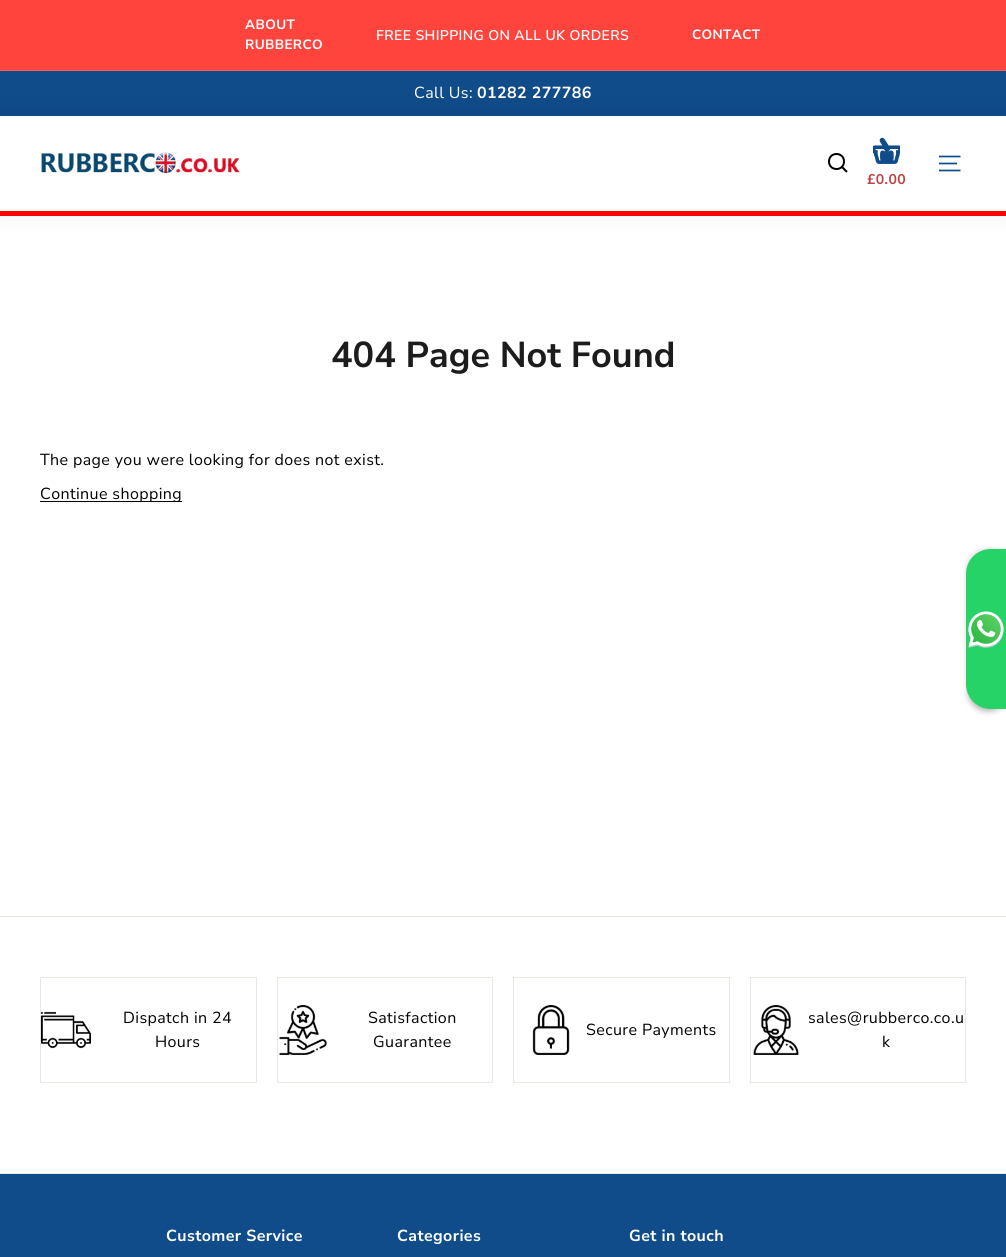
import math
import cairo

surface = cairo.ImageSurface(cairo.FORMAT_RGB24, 1006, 1257)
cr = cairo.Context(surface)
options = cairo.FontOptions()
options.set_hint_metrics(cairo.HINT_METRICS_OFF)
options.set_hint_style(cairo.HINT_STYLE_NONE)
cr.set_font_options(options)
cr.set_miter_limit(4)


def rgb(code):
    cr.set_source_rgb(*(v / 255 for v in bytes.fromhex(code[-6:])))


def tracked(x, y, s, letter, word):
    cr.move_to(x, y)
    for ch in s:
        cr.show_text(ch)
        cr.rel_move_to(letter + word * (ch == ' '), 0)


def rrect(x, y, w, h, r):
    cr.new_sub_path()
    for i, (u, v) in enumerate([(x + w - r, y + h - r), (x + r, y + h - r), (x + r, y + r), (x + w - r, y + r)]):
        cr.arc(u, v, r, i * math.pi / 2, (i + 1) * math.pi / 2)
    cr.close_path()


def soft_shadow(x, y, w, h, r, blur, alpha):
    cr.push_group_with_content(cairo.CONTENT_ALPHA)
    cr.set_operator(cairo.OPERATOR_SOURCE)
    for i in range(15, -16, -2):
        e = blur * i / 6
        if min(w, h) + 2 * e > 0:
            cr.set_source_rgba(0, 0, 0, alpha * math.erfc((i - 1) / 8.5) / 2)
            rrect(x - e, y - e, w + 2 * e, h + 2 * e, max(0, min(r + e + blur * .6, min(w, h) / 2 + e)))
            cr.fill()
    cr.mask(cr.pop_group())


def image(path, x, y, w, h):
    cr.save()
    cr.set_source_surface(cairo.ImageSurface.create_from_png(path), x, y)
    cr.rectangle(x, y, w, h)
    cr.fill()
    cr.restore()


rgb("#ffffff")
cr.paint()
for x, y, w, h, color in [
    (0, 0, 1006, 70, "#ff443e"),
    (0, 70, 1006, 1, "#ff605b"),
    (0, 71, 1006, 45, "#0f4c89"),
]:
    rgb(color)
    cr.rectangle(x, y, w, h)
    cr.fill()
rgb("#000000")
soft_shadow(0, 116, 1006, 95, 0, 12.5, 0.1)
rgb("#ffffff")
cr.rectangle(0, 116, 1006, 95)
cr.fill()
image("img/1.png", 41, 152, 199, 22)
cr.new_path()
cr.move_to(844, 161.5)
cr.curve_to(844, 171.5, 829, 171.5, 829, 161.5)
cr.curve_to(829, 151.5, 844, 151.5, 844, 161.5)
cr.close_path()
cr.move_to(847, 172)
cr.line_to(842, 167)
rgb("#000000")
cr.stroke()
cr.new_path()
cr.move_to(939, 156.5)
cr.line_to(960.5, 156.5)
cr.move_to(939, 163.5)
cr.line_to(957, 163.5)
cr.move_to(939, 170.5)
cr.line_to(960.5, 170.5)
rgb("#0f4c89")
cr.set_line_width(1.7)
cr.stroke()
image("img/2.png", 873, 137, 27, 27)
for x, y, w, h, color in [
    (0, 211, 1006, 5, "#ff0000"),
    (40, 501, 142, 1, "#000000"),
    (0, 916, 1006, 1, "#e8e8e1"),
]:
    rgb(color)
    cr.rectangle(x, y, w, h)
    cr.fill()
cr.rectangle(40.5, 977.5, 216, 105)
cr.set_line_width(1)
cr.stroke()
image("img/3.png", 41, 1011, 50, 38)
cr.rectangle(277.5, 977.5, 215, 105)
cr.stroke()
image("img/4.png", 279, 1005, 48, 50)
cr.rectangle(513.5, 977.5, 216, 105)
cr.stroke()
image("img/5.png", 532, 1005, 38, 50)
cr.rectangle(750.5, 977.5, 215, 105)
cr.stroke()
image("img/6.png", 753, 1005, 46, 50)
rgb("#0f4c89")
cr.rectangle(0, 1174, 1006, 83)
cr.fill()
rgb("#e8e8e1")
cr.rectangle(0, 1173, 1006, 1)
cr.fill()
rgb("#000000")
soft_shadow(968, 551, 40, 160, 25, 3, 0.3)
rgb("#25d366")
cr.new_path()
cr.move_to(991, 549)
cr.line_to(1006, 549)
cr.line_to(1006, 709)
cr.line_to(991, 709)
cr.curve_to(977, 709, 966, 698, 966, 684)
cr.line_to(966, 574)
cr.curve_to(966, 560, 977, 549, 991, 549)
cr.close_path()
cr.fill()
image("img/7.png", 968, 611, 36, 37)
cr.select_font_face("Nunito Sans", cairo.FONT_SLANT_NORMAL, cairo.FONT_WEIGHT_BOLD)
cr.set_font_size(13.5)
rgb("#ffffff")
tracked(245, 29, "ABOUT", 0.4, 0)
tracked(245, 49, "RUBBERCO", 0.4, 0)
cr.select_font_face("Nunito Sans SemiBold")
cr.set_font_size(14)
tracked(376, 40, "FREE SHIPPING ON ALL UK ORDERS", 0.4, 0)
cr.select_font_face("Nunito Sans", cairo.FONT_SLANT_NORMAL, cairo.FONT_WEIGHT_BOLD)
cr.set_font_size(13.5)
tracked(692, 39, "CONTACT", 0.4, 0)
cr.select_font_face("Nunito Sans")
cr.set_font_size(16)
tracked(414, 98, "Call Us:", 0.4, 0)
cr.select_font_face("Nunito Sans", cairo.FONT_SLANT_NORMAL, cairo.FONT_WEIGHT_BOLD)
tracked(477, 98, "01282 277786", 0.4, 0)
cr.set_font_size(14)
rgb("#ba4444")
tracked(867, 184, "£0.00", 0.4, 0)
cr.set_font_size(36)
rgb("#1d1c1c")
cr.move_to(331, 367)
cr.show_text("404 Page Not Found")
cr.select_font_face("Nunito Sans")
cr.set_font_size(16)
rgb("#000000")
for x, y, s in [
    (40, 465, "The page you were looking for does not exist."),
    (40, 499, "Continue shopping"),
    (123, 1023, "Dispatch in 24"),
    (155, 1047, "Hours"),
    (368, 1023, "Satisfaction"),
    (373, 1047, "Guarantee"),
    (586, 1035, "Secure Payments"),
    (808, 1023, "sales@rubberco.co.u"),
    (882, 1047, "k"),
]:
    tracked(x, y, s, 0.4, 0)
cr.select_font_face("Nunito Sans", cairo.FONT_SLANT_NORMAL, cairo.FONT_WEIGHT_BOLD)
rgb("#ffffff")
for x, y, s in [
    (166, 1241, "Customer Service"),
    (397, 1241, "Categories"),
    (629, 1241, "Get in touch"),
]:
    tracked(x, y, s, 0.4, 0)
surface.write_to_png("page.png")
